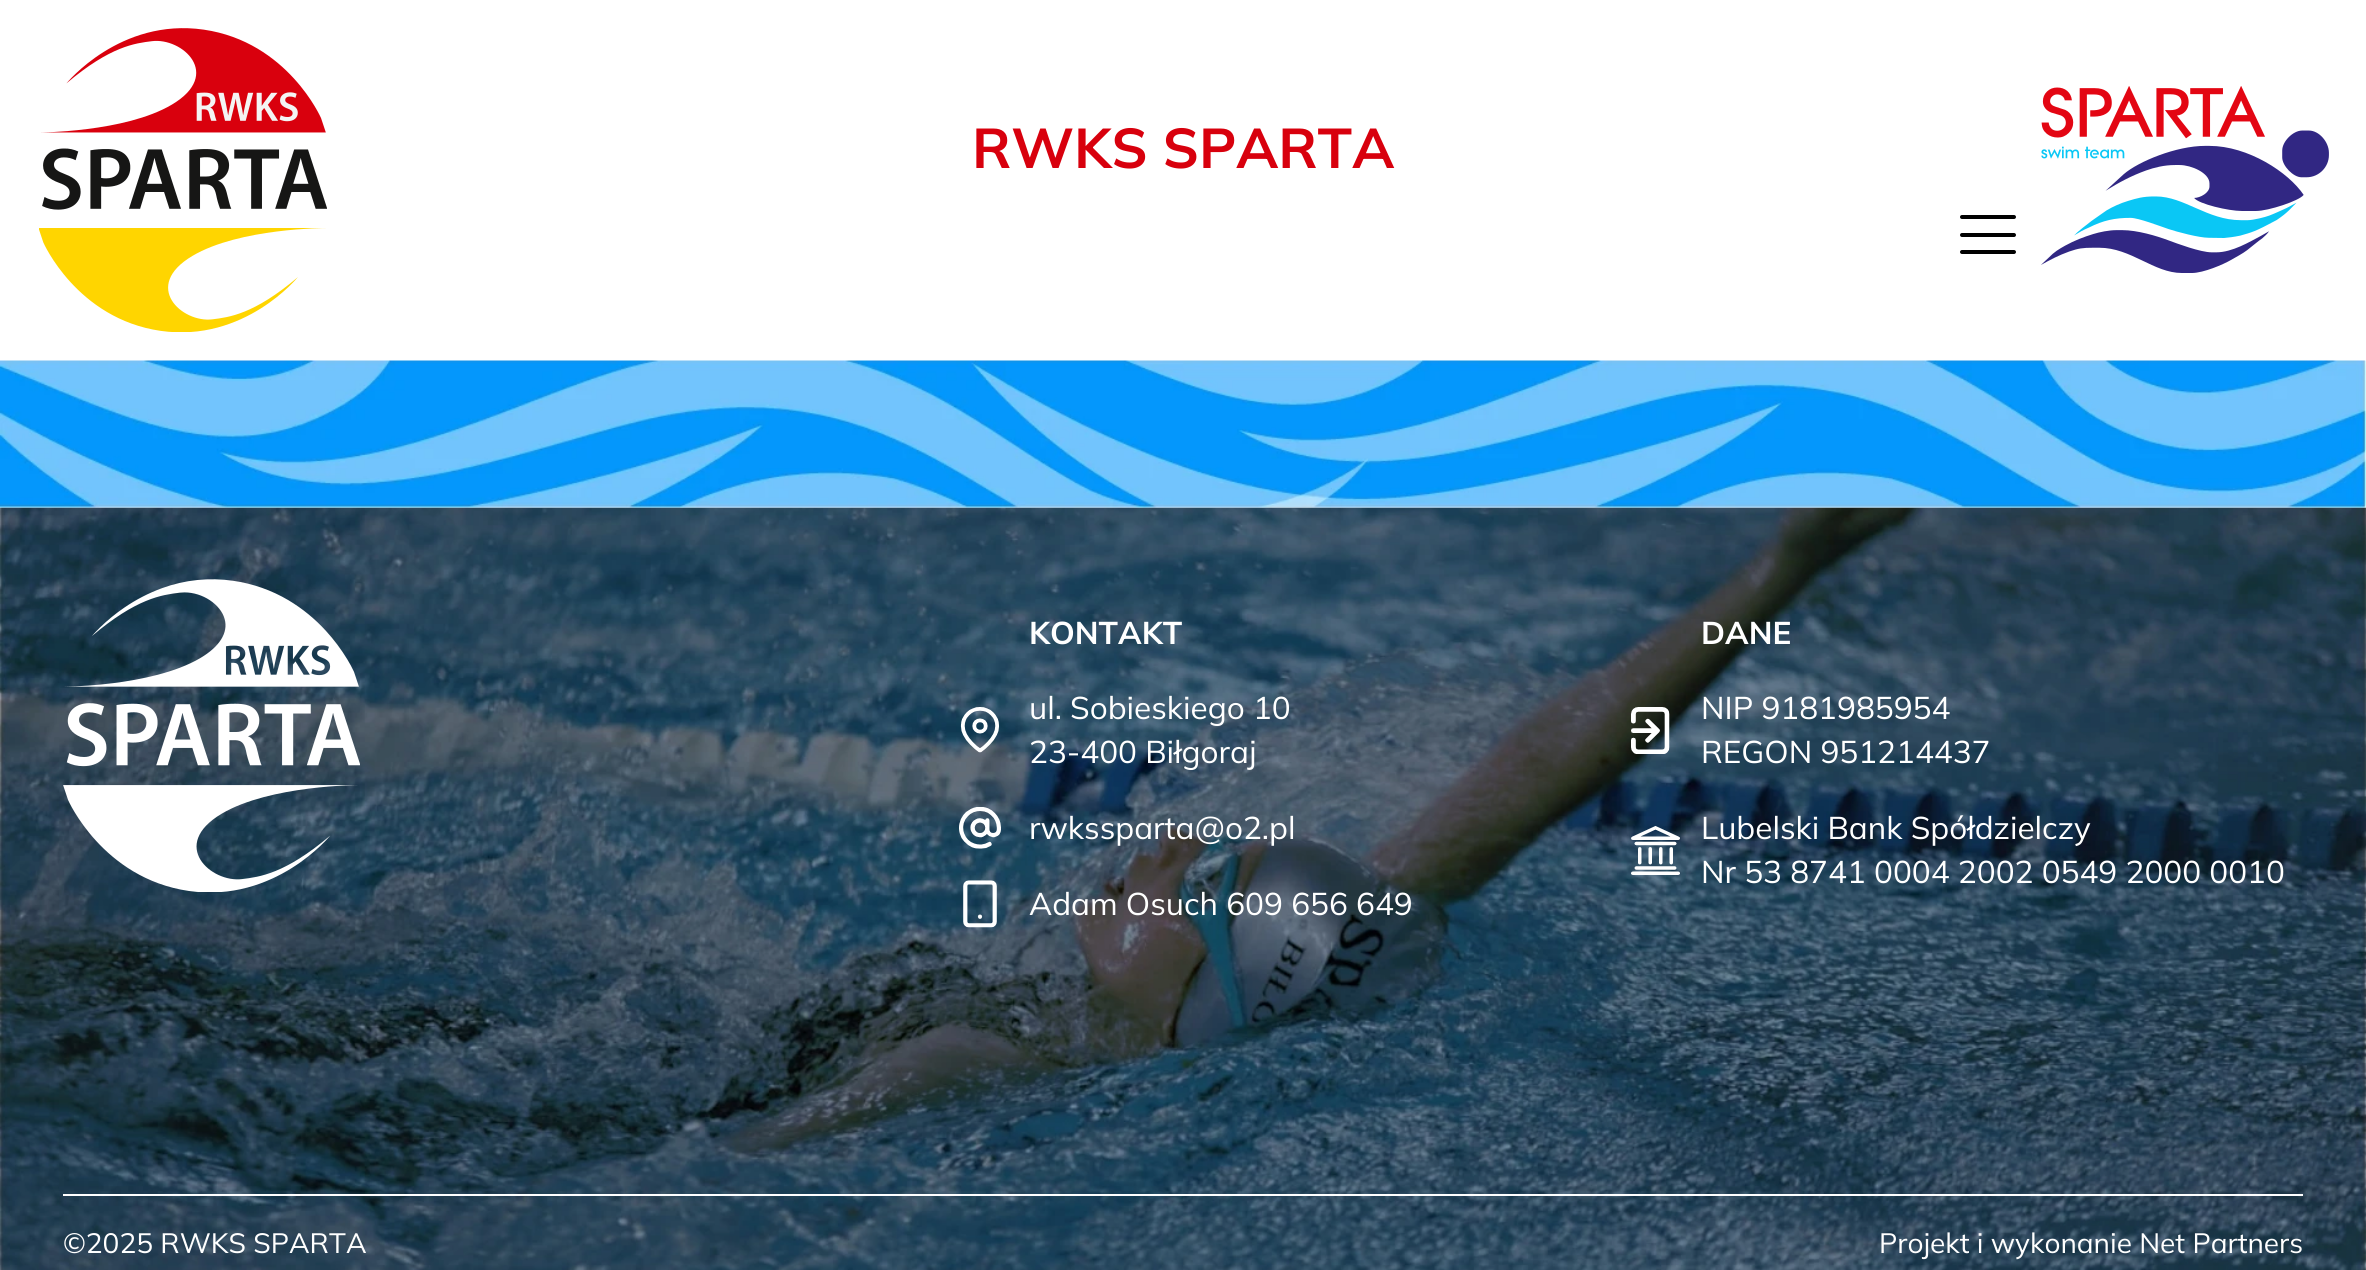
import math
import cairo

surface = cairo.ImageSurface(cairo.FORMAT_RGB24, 2366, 1270)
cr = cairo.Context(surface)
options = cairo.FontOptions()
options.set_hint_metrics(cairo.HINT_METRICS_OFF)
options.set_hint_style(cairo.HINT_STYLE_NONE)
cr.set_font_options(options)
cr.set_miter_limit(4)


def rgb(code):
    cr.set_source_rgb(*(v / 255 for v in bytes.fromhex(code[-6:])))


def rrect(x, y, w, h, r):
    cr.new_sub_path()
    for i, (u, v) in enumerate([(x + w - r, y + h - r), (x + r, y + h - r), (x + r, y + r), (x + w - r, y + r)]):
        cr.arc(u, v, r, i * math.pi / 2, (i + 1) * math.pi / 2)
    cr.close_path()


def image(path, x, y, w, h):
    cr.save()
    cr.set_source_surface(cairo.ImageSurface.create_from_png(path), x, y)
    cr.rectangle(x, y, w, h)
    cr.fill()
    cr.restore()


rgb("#ffffff")
cr.paint()
image("img/1.png", 39, 28, 288, 304)
rgb("#000000")
rrect(1960, 215, 56, 4, 2)
cr.fill()
rrect(1960, 233, 56, 4, 2)
cr.fill()
rrect(1960, 250, 56, 4, 2)
cr.fill()
image("img/2.png", 2041, 86, 288, 187)
image("img/4.png", 0, 507, 2366, 763)
image("img/3.png", 0, 360, 2366, 148)
image("img/5.png", 63, 579, 297, 313)
image("img/6.png", 960, 707, 39, 46)
image("img/7.png", 959, 807, 42, 42)
image("img/8.png", 963, 880, 34, 48)
image("img/9.png", 1631, 707, 39, 47)
image("img/10.png", 1631, 826, 49, 49)
rgb("#ffffff")
cr.rectangle(63, 1194, 2240, 2)
cr.fill()
cr.select_font_face("Mulish ExtraLight")
cr.set_font_size(56)
rgb("#d8000d")
cr.move_to(972, 168)
cr.show_text("RWKS SPARTA")
cr.set_font_size(31.5)
rgb("#ffffff")
cr.move_to(1029, 644)
cr.show_text("KONTAKT")
cr.select_font_face("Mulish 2 ExtraLight")
for x, y, s in [
    (1029, 719, "ul. Sobieskiego 10"),
    (1029, 763, "23-400 Biłgoraj"),
    (1029, 839, "rwkssparta@o2.pl"),
    (1029, 915, "Adam Osuch 609 656 649"),
]:
    cr.move_to(x, y)
    cr.show_text(s)
cr.select_font_face("Mulish ExtraLight")
cr.move_to(1701, 644)
cr.show_text("DANE")
cr.select_font_face("Mulish 2 ExtraLight")
for x, y, s in [
    (1701, 719, "NIP 9181985954"),
    (1701, 763, "REGON 951214437"),
    (1701, 839, "Lubelski Bank Spółdzielczy"),
    (1701, 883, "Nr 53 8741 0004 2002 0549 2000 0010"),
]:
    cr.move_to(x, y)
    cr.show_text(s)
cr.set_font_size(28)
cr.move_to(63, 1253)
cr.show_text("©2025 RWKS SPARTA")
cr.move_to(1879, 1253)
cr.show_text("Projekt i wykonanie Net Partners")
surface.write_to_png("page.png")
